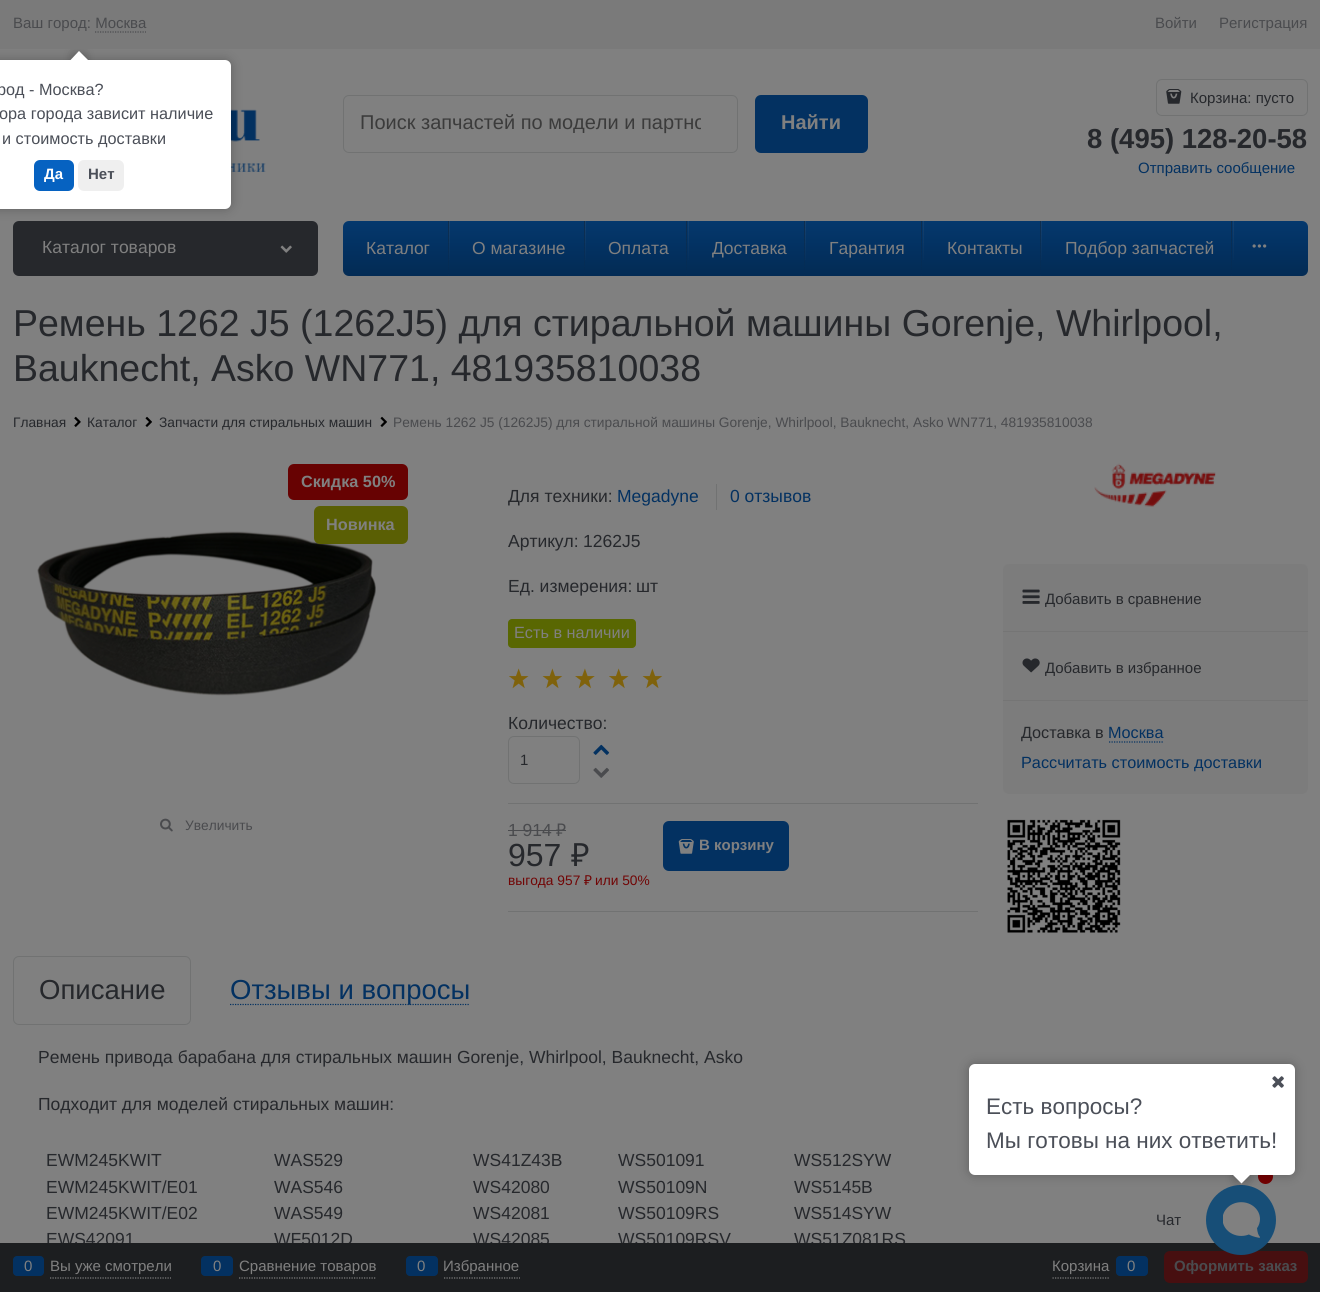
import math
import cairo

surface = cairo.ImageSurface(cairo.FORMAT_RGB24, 1320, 1292)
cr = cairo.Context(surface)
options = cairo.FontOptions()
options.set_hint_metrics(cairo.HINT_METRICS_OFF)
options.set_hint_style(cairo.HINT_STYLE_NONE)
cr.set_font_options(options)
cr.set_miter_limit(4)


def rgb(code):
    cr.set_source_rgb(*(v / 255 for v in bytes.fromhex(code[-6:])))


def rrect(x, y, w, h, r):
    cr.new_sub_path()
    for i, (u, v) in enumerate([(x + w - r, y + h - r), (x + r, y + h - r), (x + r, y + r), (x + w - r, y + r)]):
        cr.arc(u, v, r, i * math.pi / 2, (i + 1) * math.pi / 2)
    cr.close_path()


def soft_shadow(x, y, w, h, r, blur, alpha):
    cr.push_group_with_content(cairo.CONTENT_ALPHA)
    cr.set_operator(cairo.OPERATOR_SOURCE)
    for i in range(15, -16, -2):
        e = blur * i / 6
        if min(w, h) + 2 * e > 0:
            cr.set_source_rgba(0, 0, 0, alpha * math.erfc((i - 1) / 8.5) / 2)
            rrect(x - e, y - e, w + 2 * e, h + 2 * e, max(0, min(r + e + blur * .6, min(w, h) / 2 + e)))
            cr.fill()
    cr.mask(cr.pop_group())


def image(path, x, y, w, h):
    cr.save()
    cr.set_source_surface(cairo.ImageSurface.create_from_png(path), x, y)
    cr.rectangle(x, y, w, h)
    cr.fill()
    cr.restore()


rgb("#808080")
cr.paint()
rgb("#7a7a7a")
cr.rectangle(0, 0, 1320, 49)
cr.fill()
cr.new_path()
cr.move_to(95, 32)
cr.line_to(146, 32)
rgb("#4a4b4e")
cr.set_line_width(1.2)
cr.set_dash([1.25, 1.25])
cr.stroke()
image("img/1.png", 231, 109, 35, 63)
rrect(343.5, 95.5, 394, 57, 5.5)
rgb("#717272")
cr.set_line_width(1)
cr.set_dash([])
cr.stroke()
rgb("#033161")
rrect(755, 95, 113, 58, 6)
cr.fill()
rrect(1156.5, 79.5, 151, 36, 5.5)
rgb("#717272")
cr.stroke()
image("img/2.png", 1166, 89, 16, 15)
rgb("#26282c")
rrect(13, 221, 305, 55, 6)
cr.fill()
image("img/3.png", 280, 245, 12, 8)
gradient = cairo.LinearGradient(825, 221, 825, 276)
gradient.add_color_stop_rgba(0, 0.016, 0.22, 0.427, 1)
gradient.add_color_stop_rgba(0.5, 0.012, 0.192, 0.38, 1)
gradient.add_color_stop_rgba(1, 0.012, 0.169, 0.329, 1)
cr.set_source(gradient)
rrect(343, 221, 965, 55, 6)
cr.fill()
gradient = cairo.LinearGradient(449, 221, 449, 276)
gradient.add_color_stop_rgba(0, 0.502, 0.502, 0.502, 0.14)
gradient.add_color_stop_rgba(0.72, 0.502, 0.502, 0.502, 0.02)
gradient.add_color_stop_rgba(1, 0.502, 0.502, 0.502, 0)
cr.set_source(gradient)
cr.rectangle(449, 221, 1, 39)
cr.fill()
gradient = cairo.LinearGradient(448, 221, 448, 276)
gradient.add_color_stop_rgba(0, 0.114, 0.114, 0.114, 0.39)
gradient.add_color_stop_rgba(0.17, 0.114, 0.114, 0.114, 0.33)
gradient.add_color_stop_rgba(0.61, 0.114, 0.114, 0.114, 0.12)
gradient.add_color_stop_rgba(0.96, 0.114, 0.114, 0.114, 0.01)
gradient.add_color_stop_rgba(0.98, 0.502, 0.502, 0.502, 0.01)
gradient.add_color_stop_rgba(1, 0.502, 0.502, 0.502, 0)
cr.set_source(gradient)
cr.rectangle(448, 221, 1, 55)
cr.fill()
gradient = cairo.LinearGradient(586, 221, 586, 276)
gradient.add_color_stop_rgba(0, 0.502, 0.502, 0.502, 0.14)
gradient.add_color_stop_rgba(0.72, 0.502, 0.502, 0.502, 0.02)
gradient.add_color_stop_rgba(1, 0.502, 0.502, 0.502, 0)
cr.set_source(gradient)
cr.rectangle(585, 221, 1, 39)
cr.fill()
gradient = cairo.LinearGradient(584, 221, 584, 276)
gradient.add_color_stop_rgba(0, 0.114, 0.114, 0.114, 0.39)
gradient.add_color_stop_rgba(0.17, 0.114, 0.114, 0.114, 0.33)
gradient.add_color_stop_rgba(0.61, 0.114, 0.114, 0.114, 0.12)
gradient.add_color_stop_rgba(0.96, 0.114, 0.114, 0.114, 0.01)
gradient.add_color_stop_rgba(0.98, 0.502, 0.502, 0.502, 0.01)
gradient.add_color_stop_rgba(1, 0.502, 0.502, 0.502, 0)
cr.set_source(gradient)
cr.rectangle(584, 221, 1, 55)
cr.fill()
gradient = cairo.LinearGradient(688, 221, 688, 276)
gradient.add_color_stop_rgba(0, 0.502, 0.502, 0.502, 0.14)
gradient.add_color_stop_rgba(0.72, 0.502, 0.502, 0.502, 0.02)
gradient.add_color_stop_rgba(1, 0.502, 0.502, 0.502, 0)
cr.set_source(gradient)
cr.rectangle(688, 221, 1, 39)
cr.fill()
gradient = cairo.LinearGradient(687, 221, 687, 276)
gradient.add_color_stop_rgba(0, 0.114, 0.114, 0.114, 0.39)
gradient.add_color_stop_rgba(0.17, 0.114, 0.114, 0.114, 0.33)
gradient.add_color_stop_rgba(0.61, 0.114, 0.114, 0.114, 0.12)
gradient.add_color_stop_rgba(0.96, 0.114, 0.114, 0.114, 0.01)
gradient.add_color_stop_rgba(0.98, 0.502, 0.502, 0.502, 0.01)
gradient.add_color_stop_rgba(1, 0.502, 0.502, 0.502, 0)
cr.set_source(gradient)
cr.rectangle(686, 221, 1, 55)
cr.fill()
gradient = cairo.LinearGradient(806, 221, 806, 276)
gradient.add_color_stop_rgba(0, 0.502, 0.502, 0.502, 0.14)
gradient.add_color_stop_rgba(0.72, 0.502, 0.502, 0.502, 0.02)
gradient.add_color_stop_rgba(1, 0.502, 0.502, 0.502, 0)
cr.set_source(gradient)
cr.rectangle(805, 221, 1, 39)
cr.fill()
gradient = cairo.LinearGradient(804, 221, 804, 276)
gradient.add_color_stop_rgba(0, 0.114, 0.114, 0.114, 0.39)
gradient.add_color_stop_rgba(0.17, 0.114, 0.114, 0.114, 0.33)
gradient.add_color_stop_rgba(0.61, 0.114, 0.114, 0.114, 0.12)
gradient.add_color_stop_rgba(0.96, 0.114, 0.114, 0.114, 0.01)
gradient.add_color_stop_rgba(0.98, 0.502, 0.502, 0.502, 0.01)
gradient.add_color_stop_rgba(1, 0.502, 0.502, 0.502, 0)
cr.set_source(gradient)
cr.rectangle(804, 221, 1, 55)
cr.fill()
gradient = cairo.LinearGradient(923, 221, 923, 276)
gradient.add_color_stop_rgba(0, 0.502, 0.502, 0.502, 0.14)
gradient.add_color_stop_rgba(0.72, 0.502, 0.502, 0.502, 0.02)
gradient.add_color_stop_rgba(1, 0.502, 0.502, 0.502, 0)
cr.set_source(gradient)
cr.rectangle(923, 221, 1, 39)
cr.fill()
gradient = cairo.LinearGradient(922, 221, 922, 276)
gradient.add_color_stop_rgba(0, 0.114, 0.114, 0.114, 0.39)
gradient.add_color_stop_rgba(0.17, 0.114, 0.114, 0.114, 0.33)
gradient.add_color_stop_rgba(0.61, 0.114, 0.114, 0.114, 0.12)
gradient.add_color_stop_rgba(0.96, 0.114, 0.114, 0.114, 0.01)
gradient.add_color_stop_rgba(0.98, 0.502, 0.502, 0.502, 0.01)
gradient.add_color_stop_rgba(1, 0.502, 0.502, 0.502, 0)
cr.set_source(gradient)
cr.rectangle(921, 221, 1, 55)
cr.fill()
gradient = cairo.LinearGradient(1042, 221, 1042, 276)
gradient.add_color_stop_rgba(0, 0.502, 0.502, 0.502, 0.14)
gradient.add_color_stop_rgba(0.72, 0.502, 0.502, 0.502, 0.02)
gradient.add_color_stop_rgba(1, 0.502, 0.502, 0.502, 0)
cr.set_source(gradient)
cr.rectangle(1041, 221, 1, 39)
cr.fill()
gradient = cairo.LinearGradient(1041, 221, 1041, 276)
gradient.add_color_stop_rgba(0, 0.114, 0.114, 0.114, 0.39)
gradient.add_color_stop_rgba(0.17, 0.114, 0.114, 0.114, 0.33)
gradient.add_color_stop_rgba(0.61, 0.114, 0.114, 0.114, 0.12)
gradient.add_color_stop_rgba(0.96, 0.114, 0.114, 0.114, 0.01)
gradient.add_color_stop_rgba(0.98, 0.502, 0.502, 0.502, 0.01)
gradient.add_color_stop_rgba(1, 0.502, 0.502, 0.502, 0)
cr.set_source(gradient)
cr.rectangle(1040, 221, 1, 55)
cr.fill()
gradient = cairo.LinearGradient(1233, 221, 1233, 276)
gradient.add_color_stop_rgba(0, 0.502, 0.502, 0.502, 0.14)
gradient.add_color_stop_rgba(0.72, 0.502, 0.502, 0.502, 0.02)
gradient.add_color_stop_rgba(1, 0.502, 0.502, 0.502, 0)
cr.set_source(gradient)
cr.rectangle(1233, 221, 1, 39)
cr.fill()
gradient = cairo.LinearGradient(1232, 221, 1232, 276)
gradient.add_color_stop_rgba(0, 0.114, 0.114, 0.114, 0.39)
gradient.add_color_stop_rgba(0.17, 0.114, 0.114, 0.114, 0.33)
gradient.add_color_stop_rgba(0.61, 0.114, 0.114, 0.114, 0.12)
gradient.add_color_stop_rgba(0.96, 0.114, 0.114, 0.114, 0.01)
gradient.add_color_stop_rgba(0.98, 0.502, 0.502, 0.502, 0.01)
gradient.add_color_stop_rgba(1, 0.502, 0.502, 0.502, 0)
cr.set_source(gradient)
cr.rectangle(1231, 221, 1, 55)
cr.fill()
image("img/4.png", 1252, 244, 15, 4)
image("img/5.png", 74, 416, 7, 11)
image("img/6.png", 145, 416, 7, 11)
image("img/6.png", 380, 416, 7, 11)
rgb("#670202")
rrect(288, 464, 120, 36, 6)
cr.fill()
image("img/7.png", 37, 531, 339, 165)
rgb("#5a5f04")
rrect(314, 506, 94, 38, 6)
cr.fill()
image("img/8.png", 160, 818, 13, 14)
rgb("#717272")
cr.rectangle(716, 484, 1, 26)
cr.fill()
rgb("#596702")
rrect(508, 619, 128, 29, 4)
cr.fill()
image("img/9.png", 509, 668, 20, 21)
image("img/10.png", 542, 668, 21, 21)
image("img/11.png", 575, 668, 20, 21)
image("img/9.png", 609, 668, 20, 21)
image("img/10.png", 642, 668, 21, 21)
rrect(508.5, 736.5, 71, 47, 5.5)
rgb("#717272")
cr.stroke()
image("img/12.png", 593, 744, 17, 11)
image("img/13.png", 593, 767, 16, 11)
for x, y, w, h, color in [
    (508, 803, 470, 1, "#717272"),
    (508, 911, 470, 1, "#717272"),
    (508, 830, 43, 1, "#4a4b4e"),
    (551, 830, 15, 1, "#4a4b4e"),
]:
    rgb(color)
    cr.rectangle(x, y, w, h)
    cr.fill()
rgb("#033161")
rrect(663, 821, 126, 50, 6)
cr.fill()
image("img/14.png", 678, 839, 16, 15)
rrect(13.5, 956.5, 177, 68, 5.5)
rgb("#717272")
cr.stroke()
cr.new_path()
cr.move_to(230, 1004.5)
cr.line_to(470, 1004.5)
rgb("#033161")
cr.set_line_width(1.2)
cr.set_dash([1.25, 1.25])
cr.stroke()
image("img/15.png", 1094, 463, 122, 44)
rgb("#7c7c7c")
rrect(1003, 564, 305, 230, 6)
cr.fill()
rgb("#757575")
cr.rectangle(1003, 631, 305, 1)
cr.fill()
image("img/16.png", 1022, 589, 18, 15)
cr.rectangle(1003, 700, 305, 1)
cr.fill()
image("img/17.png", 1022, 658, 18, 15)
cr.new_path()
cr.move_to(1109, 742)
cr.line_to(1164, 742)
rgb("#033161")
cr.stroke()
image("img/18.png", 1007, 819, 114, 114)
rgb("#000000")
soft_shadow(-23, 60, 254, 149, 6, 5.5, 0.25)
rgb("#ffffff")
rrect(-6, 60, 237, 149, 6)
cr.fill()
cr.save()
cr.rectangle(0, 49, 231, 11)
cr.clip()
rgb("#000000")
soft_shadow(73, 54, 12, 12, 0, 5.5, 0.25)
cr.restore()
cr.save()
cr.rectangle(0, 49, 231, 11)
cr.clip()
cr.new_path()
cr.move_to(79, 51)
cr.line_to(88, 60)
cr.line_to(79, 69)
cr.line_to(70.5, 60)
cr.close_path()
cr.fill()
cr.restore()
rgb("#0662c1")
rrect(34, 160, 40, 31, 6)
cr.fill()
rgb("#efefef")
rrect(78, 160, 46, 31, 6)
cr.fill()
rgb("#720001")
cr.arc(1265.5, 1176.5, 7.5, 0, 2 * math.pi)
cr.fill()
cr.select_font_face("Liberation Sans")
cr.set_font_size(15)
rgb("#4a4b4e")
for x, y, s in [
    (13, 28, "Ваш город: Москва"),
    (1155, 28, "Войти"),
    (1219, 28, "Регистрация"),
]:
    cr.move_to(x, y)
    cr.show_text(s)
cr.save()
cr.rectangle(360, 113, 341, 22)
cr.clip()
cr.set_font_size(20)
rgb("#3b3b3b")
cr.move_to(360, 129)
cr.show_text("Поиск запчастей по модели и партно")
cr.restore()
cr.select_font_face("Liberation Sans", cairo.FONT_SLANT_NORMAL, cairo.FONT_WEIGHT_BOLD)
cr.set_font_size(20)
rgb("#808080")
cr.move_to(781, 129)
cr.show_text("Найти")
cr.select_font_face("Liberation Sans")
cr.set_font_size(15)
rgb("#26282c")
cr.move_to(1190, 103)
cr.show_text("Корзина: пусто")
cr.select_font_face("Liberation Sans", cairo.FONT_SLANT_NORMAL, cairo.FONT_WEIGHT_BOLD)
cr.set_font_size(27.5)
cr.move_to(1087, 148)
cr.show_text("8 (495) 128-20-58")
cr.select_font_face("Liberation Sans")
cr.set_font_size(15)
rgb("#033161")
cr.move_to(1138, 173)
cr.show_text("Отправить сообщение")
cr.set_font_size(17.5)
rgb("#808080")
for x, y, s in [
    (42, 253, "Каталог товаров"),
    (366, 254, "Каталог"),
    (472, 254, "О магазине"),
    (608, 254, "Оплата"),
    (712, 254, "Доставка"),
    (829, 254, "Гарантия"),
    (947, 254, "Контакты"),
    (1065, 254, "Подбор запчастей"),
]:
    cr.move_to(x, y)
    cr.show_text(s)
cr.set_font_size(37.5)
rgb("#26282c")
cr.move_to(13, 336)
cr.show_text("Ремень 1262 J5 (1262J5) для стиральной машины Gorenje, Whirlpool,")
cr.move_to(13, 381)
cr.show_text("Bauknecht, Asko WN771, 481935810038")
cr.set_font_size(13.75)
for x, y, s in [
    (13, 427, "Главная"),
    (87, 427, "Каталог"),
    (159, 427, "Запчасти для стиральных машин"),
]:
    cr.move_to(x, y)
    cr.show_text(s)
rgb("#4a4b4e")
cr.move_to(393, 427)
cr.show_text("Ремень 1262 J5 (1262J5) для стиральной машины Gorenje, Whirlpool, Bauknecht, Asko WN771, 481935810038")
cr.select_font_face("Liberation Sans", cairo.FONT_SLANT_NORMAL, cairo.FONT_WEIGHT_BOLD)
cr.set_font_size(16.25)
rgb("#808080")
cr.move_to(301, 487)
cr.show_text("Скидка 50%")
cr.move_to(326, 530)
cr.show_text("Новинка")
cr.select_font_face("Liberation Sans")
cr.set_font_size(13.75)
rgb("#4a4b4e")
cr.move_to(185, 830)
cr.show_text("Увеличить")
cr.set_font_size(17.5)
rgb("#26282c")
cr.move_to(508, 502)
cr.show_text("Для техники:")
rgb("#033161")
cr.move_to(617, 502)
cr.show_text("Megadyne")
cr.move_to(730, 502)
cr.show_text("0 отзывов")
rgb("#26282c")
for x, y, s in [
    (508, 547, "Артикул:"),
    (583, 547, "1262J5"),
    (508, 592, "Ед. измерения:"),
    (636, 592, "шт"),
]:
    cr.move_to(x, y)
    cr.show_text(s)
cr.set_font_size(16.25)
rgb("#808080")
cr.move_to(514, 638)
cr.show_text("Есть в наличии")
cr.set_font_size(17.5)
rgb("#26282c")
cr.move_to(508, 729)
cr.show_text("Количество:")
cr.set_font_size(15)
cr.move_to(520, 765)
cr.show_text("1")
cr.set_font_size(17.5)
rgb("#4a4b4e")
cr.move_to(508, 836)
cr.show_text("1 914")
cr.select_font_face("Noto Sans")
cr.move_to(556, 836)
cr.show_text("₽")
cr.select_font_face("Liberation Sans")
cr.set_font_size(32)
rgb("#26282c")
cr.move_to(508, 866)
cr.show_text("957")
cr.select_font_face("Noto Sans")
cr.move_to(571, 866)
cr.show_text("₽")
cr.select_font_face("Liberation Sans")
cr.set_font_size(13.75)
rgb("#710505")
cr.move_to(508, 885)
cr.show_text("выгода 957")
cr.select_font_face("Noto Sans")
cr.move_to(584, 885)
cr.show_text("₽")
cr.select_font_face("Liberation Sans")
cr.move_to(595, 885)
cr.show_text("или 50%")
cr.select_font_face("Liberation Sans", cairo.FONT_SLANT_NORMAL, cairo.FONT_WEIGHT_BOLD)
cr.set_font_size(15)
rgb("#808080")
cr.move_to(699, 850)
cr.show_text("В корзину")
cr.select_font_face("Liberation Sans")
cr.set_font_size(27.5)
rgb("#26282c")
cr.move_to(39, 999)
cr.show_text("Описание")
rgb("#033161")
cr.move_to(230, 999)
cr.show_text("Отзывы и вопросы")
cr.set_font_size(17.5)
rgb("#26282c")
for x, y, s in [
    (38, 1063, "Ремень привода барабана для стиральных машин Gorenje, Whirlpool, Bauknecht, Asko"),
    (38, 1110, "Подходит для моделей стиральных машин:"),
    (46, 1166, "EWM245KWIT"),
    (46, 1193, "EWM245KWIT/E01"),
    (46, 1219, "EWM245KWIT/E02"),
    (46, 1245, "EWS42091"),
    (274, 1166, "WAS529"),
    (274, 1193, "WAS546"),
    (274, 1219, "WAS549"),
    (274, 1245, "WF5012D"),
    (473, 1166, "WS41Z43B"),
    (473, 1193, "WS42080"),
    (473, 1219, "WS42081"),
    (473, 1245, "WS42085"),
    (618, 1166, "WS501091"),
    (618, 1193, "WS50109N"),
    (618, 1219, "WS50109RS"),
    (618, 1245, "WS50109RSV"),
    (794, 1166, "WS512SYW"),
    (794, 1193, "WS5145B"),
    (794, 1219, "WS514SYW"),
    (794, 1245, "WS51Z081RS"),
]:
    cr.move_to(x, y)
    cr.show_text(s)
cr.set_font_size(15)
cr.move_to(1045, 604)
cr.show_text("Добавить в сравнение")
cr.move_to(1045, 673)
cr.show_text("Добавить в избранное")
cr.set_font_size(16.25)
cr.move_to(1021, 738)
cr.show_text("Доставка в")
rgb("#033161")
cr.move_to(1108, 738)
cr.show_text("Москва")
cr.move_to(1021, 768)
cr.show_text("Рассчитать стоимость доставки")
rgb("#1c1e20")
cr.rectangle(0, 1243, 1320, 49)
cr.fill()
cr.new_path()
cr.move_to(50, 1278)
cr.line_to(171, 1278)
rgb("#808080")
cr.stroke()
rgb("#033161")
rrect(13, 1256, 31, 20, 4)
cr.fill()
cr.set_font_size(15)
rgb("#808080")
cr.move_to(24, 1271)
cr.show_text("0")
cr.move_to(50, 1271)
cr.show_text("Вы уже смотрели")
cr.new_path()
cr.move_to(239, 1278)
cr.line_to(376, 1278)
cr.stroke()
rgb("#033161")
rrect(201, 1256, 32, 20, 4)
cr.fill()
rgb("#808080")
cr.move_to(213, 1271)
cr.show_text("0")
cr.move_to(239, 1271)
cr.show_text("Сравнение товаров")
cr.new_path()
cr.move_to(444, 1278)
cr.line_to(520, 1278)
cr.stroke()
rgb("#033161")
rrect(406, 1256, 32, 20, 4)
cr.fill()
rgb("#808080")
cr.move_to(417, 1271)
cr.show_text("0")
cr.move_to(443, 1271)
cr.show_text("Избранное")
cr.new_path()
cr.move_to(1052.5, 1278)
cr.line_to(1110, 1278)
cr.stroke()
cr.move_to(1052, 1271)
cr.show_text("Корзина")
rgb("#033161")
rrect(1116, 1256, 32, 20, 4)
cr.fill()
rgb("#808080")
cr.move_to(1127, 1271)
cr.show_text("0")
rgb("#470f10")
rrect(1164, 1251, 144, 32, 6)
cr.fill()
cr.select_font_face("Liberation Sans", cairo.FONT_SLANT_NORMAL, cairo.FONT_WEIGHT_BOLD)
rgb("#4a4b4e")
cr.move_to(1174, 1271)
cr.show_text("Оформить заказ")
cr.select_font_face("Liberation Sans")
cr.set_font_size(16.25)
rgb("#4b4f58")
for x, y, s in [
    (-3, 95, "род - Москва?"),
    (-1, 119, "ора города зависит наличие"),
    (2, 144, "и стоимость доставки"),
]:
    cr.move_to(x, y)
    cr.show_text(s)
cr.select_font_face("Liberation Sans", cairo.FONT_SLANT_NORMAL, cairo.FONT_WEIGHT_BOLD)
cr.set_font_size(15)
rgb("#ffffff")
cr.move_to(44, 179)
cr.show_text("Да")
rgb("#4b4f58")
cr.move_to(88, 179)
cr.show_text("Нет")
cr.select_font_face("Liberation Sans")
rgb("#26282c")
cr.move_to(1156, 1225)
cr.show_text("Чат")
rgb("#174e77")
cr.new_path()
cr.arc(1241, 1220, 35, 0, 2 * math.pi)
cr.fill()
rgb("#000000")
soft_shadow(969, 1064, 326, 111, 6, 5.5, 0.25)
rgb("#ffffff")
rrect(969, 1064, 326, 111, 6)
cr.fill()
image("img/19.png", 1272, 1076, 12, 12)
cr.save()
cr.rectangle(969, 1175, 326, 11)
cr.clip()
rgb("#000000")
soft_shadow(1235, 1169, 13, 12, 0, 5.5, 0.25)
cr.restore()
cr.save()
cr.rectangle(969, 1175, 326, 11)
cr.clip()
cr.new_path()
cr.move_to(1241.5, 1166)
cr.line_to(1250.5, 1174.5)
cr.line_to(1241.5, 1183.5)
cr.line_to(1232.5, 1174.5)
cr.close_path()
cr.fill()
cr.restore()
cr.set_font_size(22.5)
rgb("#4b4f58")
cr.move_to(986, 1148)
cr.show_text("Мы готовы на них ответить!")
cr.move_to(986, 1114)
cr.show_text("Есть вопросы?")
image("img/20.png", 1223, 1202, 37, 36)
surface.write_to_png("page.png")
